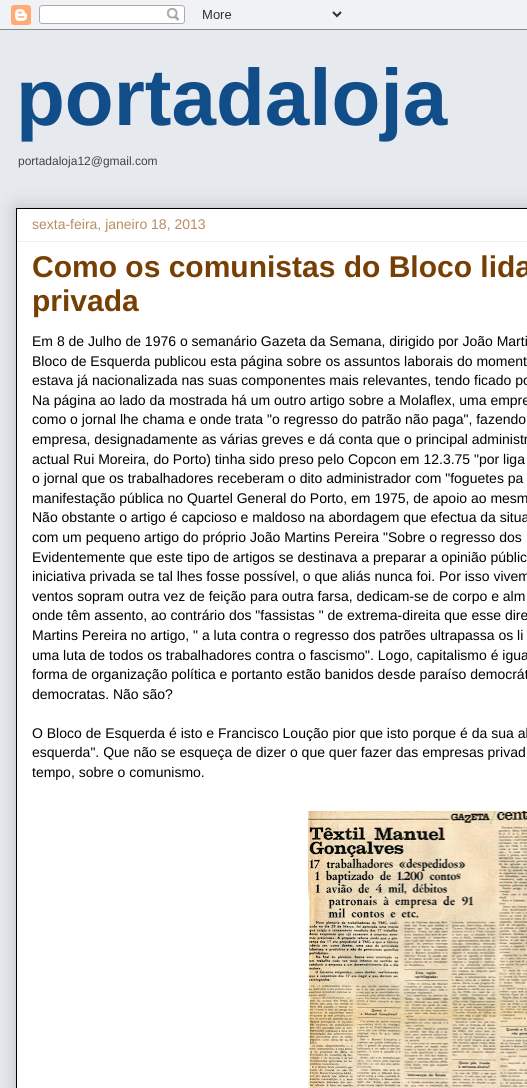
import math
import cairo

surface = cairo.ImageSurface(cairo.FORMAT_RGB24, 527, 1088)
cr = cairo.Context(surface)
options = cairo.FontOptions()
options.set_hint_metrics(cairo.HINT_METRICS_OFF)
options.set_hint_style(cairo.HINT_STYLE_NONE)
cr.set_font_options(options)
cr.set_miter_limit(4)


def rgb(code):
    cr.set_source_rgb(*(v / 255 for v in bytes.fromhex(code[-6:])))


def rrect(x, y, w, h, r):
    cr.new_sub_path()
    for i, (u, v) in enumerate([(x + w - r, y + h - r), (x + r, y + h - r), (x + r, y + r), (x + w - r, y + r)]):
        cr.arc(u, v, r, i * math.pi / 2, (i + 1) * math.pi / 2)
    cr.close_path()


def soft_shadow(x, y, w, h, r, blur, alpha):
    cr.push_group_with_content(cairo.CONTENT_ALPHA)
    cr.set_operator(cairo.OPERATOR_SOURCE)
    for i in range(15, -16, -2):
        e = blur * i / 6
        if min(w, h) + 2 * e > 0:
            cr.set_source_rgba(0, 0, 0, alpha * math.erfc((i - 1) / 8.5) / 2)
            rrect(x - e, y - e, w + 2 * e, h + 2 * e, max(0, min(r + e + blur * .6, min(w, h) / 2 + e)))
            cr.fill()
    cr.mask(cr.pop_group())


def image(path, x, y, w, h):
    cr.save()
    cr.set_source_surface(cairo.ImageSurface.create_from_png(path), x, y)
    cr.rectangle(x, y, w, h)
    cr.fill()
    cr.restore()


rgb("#e6e9ee")
cr.paint()
image("img/1.png", 0, 0, 527, 30)
rgb("#000000")
soft_shadow(16, 208, 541, 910, 0, 10, 0.2)
rgb("#ffffff")
cr.rectangle(16.5, 208.5, 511, 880)
cr.fill_preserve()
rgb("#000000")
cr.set_line_width(1)
cr.stroke()
rgb("#ededed")
cr.rectangle(17, 241, 510, 1)
cr.fill()
image("img/2.png", 308, 811, 219, 277)
cr.select_font_face("Liberation Sans", cairo.FONT_SLANT_NORMAL, cairo.FONT_WEIGHT_BOLD)
cr.set_font_size(80)
rgb("#114d88")
cr.move_to(16, 125)
cr.show_text("portadaloja")
cr.select_font_face("Liberation Sans")
cr.set_font_size(12)
rgb("#444444")
cr.move_to(18, 165)
cr.show_text("portadaloja12@gmail.com")
cr.set_font_size(14)
rgb("#b88d61")
cr.move_to(32, 229)
cr.show_text("sexta-feira, janeiro 18, 2013")
cr.select_font_face("Liberation Sans", cairo.FONT_SLANT_NORMAL, cairo.FONT_WEIGHT_BOLD)
cr.set_font_size(30)
rgb("#783f04")
cr.move_to(32, 277)
cr.show_text("Como os comunistas do Bloco lida")
cr.move_to(32, 311)
cr.show_text("privada")
cr.select_font_face("Liberation Sans")
cr.set_font_size(14)
rgb("#000000")
for x, y, s in [
    (32, 346, "Em 8 de Julho de 1976 o semanário Gazeta da Semana, dirigido por João Marti"),
    (32, 366, "Bloco de Esquerda publicou esta página sobre os assuntos laborais do moment"),
    (32, 385, "estava já nacionalizada nas suas componentes mais relevantes, tendo ficado po"),
    (32, 405, "Na página ao lado da mostrada há um outro artigo sobre a Molaflex, uma empre"),
    (32, 424, "como o jornal lhe chama e onde trata \"o regresso do patrão não paga\", fazendo"),
    (32, 444, "empresa, designadamente as várias greves e dá conta que o principal administr"),
    (32, 464, "actual Rui Moreira, do Porto) tinha sido preso pelo Copcon em 12.3.75 \"por liga"),
    (32, 483, "o jornal que os trabalhadores receberam o dito administrador com \"foguetes pa"),
    (32, 503, "manifestação pública no Quartel General do Porto, em 1975, de apoio ao mesm"),
    (32, 522, "Não obstante o artigo é capcioso e maldoso na abordagem que efectua da situa"),
    (32, 542, "com um pequeno artigo do próprio João Martins Pereira \"Sobre o regresso dos"),
    (32, 562, "Evidentemente que este tipo de artigos se destinava a preparar a opinião públic"),
    (32, 581, "iniciativa privada se tal lhes fosse possível, o que aliás nunca foi. Por isso vivem"),
    (32, 601, "ventos sopram outra vez de feição para outra farsa, dedicam-se de corpo e alm"),
    (32, 620, "onde têm assento, ao contrário dos \"fassistas \" de extrema-direita que esse dire"),
    (32, 640, "Martins Pereira no artigo, \" a luta contra o regresso dos patrões ultrapassa os li"),
    (32, 660, "uma luta de todos os trabalhadores contra o fascismo\". Logo, capitalismo é igua"),
    (32, 679, "forma de organização política e portanto estão banidos desde paraíso democrát"),
    (32, 699, "democratas. Não são?"),
    (32, 738, "O Bloco de Esquerda é isto e Francisco Loução pior que isto porque é da sua al"),
    (32, 757, "esquerda\". Que não se esqueça de dizer o que quer fazer das empresas privad"),
    (32, 777, "tempo, sobre o comunismo."),
]:
    cr.move_to(x, y)
    cr.show_text(s)
surface.write_to_png("page.png")
